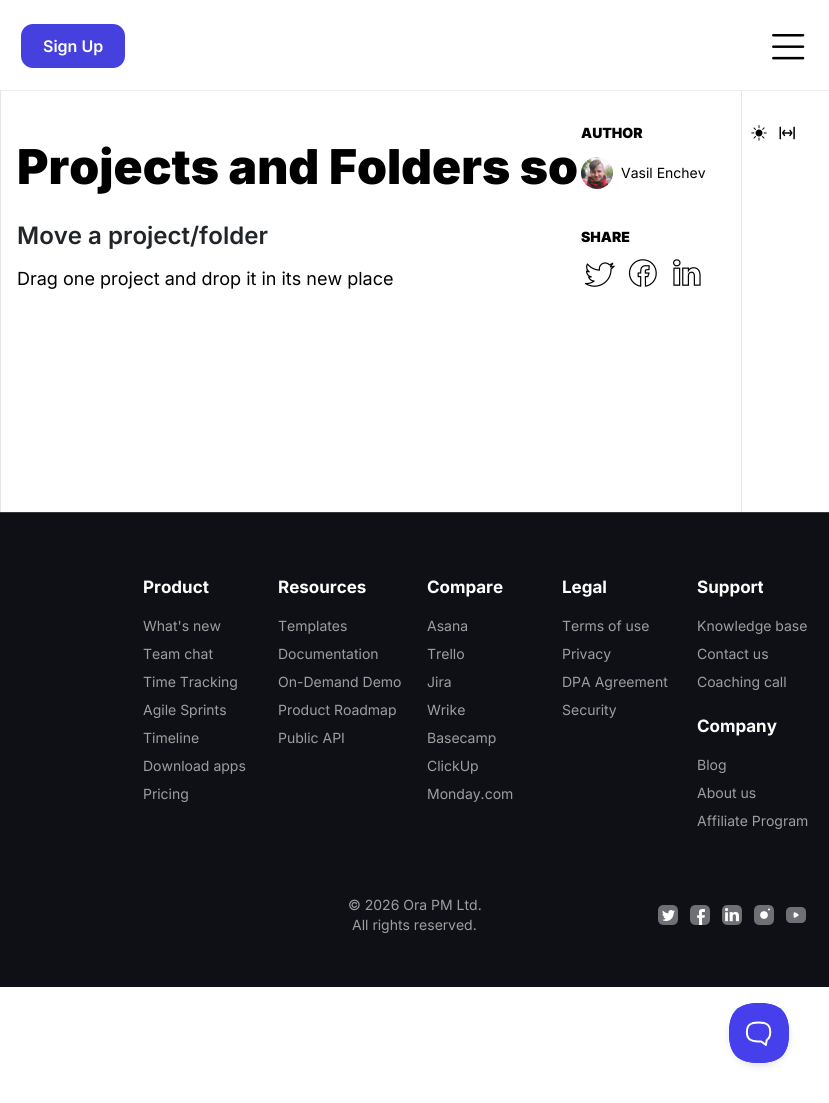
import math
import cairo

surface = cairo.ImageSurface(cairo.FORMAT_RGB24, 829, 1103)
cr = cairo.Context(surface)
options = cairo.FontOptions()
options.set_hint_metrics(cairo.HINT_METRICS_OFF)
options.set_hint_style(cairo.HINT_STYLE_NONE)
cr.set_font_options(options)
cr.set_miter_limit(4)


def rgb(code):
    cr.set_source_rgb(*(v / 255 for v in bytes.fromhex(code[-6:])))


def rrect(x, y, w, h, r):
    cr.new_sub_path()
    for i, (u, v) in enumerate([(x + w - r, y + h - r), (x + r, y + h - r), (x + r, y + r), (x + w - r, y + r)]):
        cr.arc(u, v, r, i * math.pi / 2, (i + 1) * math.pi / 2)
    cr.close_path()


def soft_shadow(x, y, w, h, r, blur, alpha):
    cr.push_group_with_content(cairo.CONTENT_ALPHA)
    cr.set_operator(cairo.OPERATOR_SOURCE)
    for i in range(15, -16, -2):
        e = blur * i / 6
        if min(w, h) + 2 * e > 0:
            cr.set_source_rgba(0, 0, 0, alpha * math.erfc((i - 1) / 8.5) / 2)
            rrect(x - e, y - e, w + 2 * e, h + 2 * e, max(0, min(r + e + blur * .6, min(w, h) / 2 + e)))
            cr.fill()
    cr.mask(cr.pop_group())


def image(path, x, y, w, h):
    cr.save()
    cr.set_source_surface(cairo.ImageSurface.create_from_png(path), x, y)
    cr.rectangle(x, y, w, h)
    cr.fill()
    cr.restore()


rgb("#ffffff")
cr.paint()
rgb("#eeeeee")
cr.rectangle(0, 90, 829, 1)
cr.fill()
rgb("#4640de")
rrect(22, 25, 102, 42, 11)
cr.fill_preserve()
cr.stroke()
image("img/1.png", 772, 34, 33, 26)
rgb("#e5e5e5")
cr.rectangle(741, 91, 1, 421)
cr.fill()
cr.rectangle(0, 91, 1, 421)
cr.fill()
image("img/2.png", 751, 125, 16, 16)
image("img/3.png", 779, 126, 16, 14)
image("img/4.png", 581, 157, 32, 32)
image("img/5.png", 584, 262, 31, 25)
image("img/6.png", 628, 259, 29, 28)
image("img/7.png", 673, 259, 28, 27)
rgb("#0e1016")
cr.rectangle(0, 513, 829, 474)
cr.fill()
rgb("#393939")
cr.rectangle(0, 512, 829, 1)
cr.fill()
image("img/8.png", 658, 905, 20, 20)
image("img/9.png", 690, 905, 20, 21)
image("img/10.png", 722, 905, 20, 20)
image("img/11.png", 754, 905, 20, 20)
image("img/12.png", 786, 907, 20, 16)
rgb("#000000")
soft_shadow(729, 1007, 60, 60, 30, 3.5, 0.1)
image("img/13.png", 729, 1003, 60, 60)
cr.select_font_face("Inter SemiBold")
cr.set_font_size(16)
rgb("#ffffff")
cr.move_to(43, 52)
cr.show_text("Sign Up")
cr.select_font_face("Inter Black")
cr.set_font_size(48)
rgb("#000000")
cr.move_to(17, 184)
cr.show_text("Projects and Folders so")
cr.select_font_face("Inter SemiBold")
cr.set_font_size(24)
rgb("#212529")
cr.move_to(17, 244)
cr.show_text("Move a project/folder")
cr.select_font_face("Inter")
cr.set_font_size(18)
rgb("#000000")
cr.move_to(17, 285)
cr.show_text("Drag one project and drop it in its new place")
cr.select_font_face("Inter Black")
cr.set_font_size(14)
cr.move_to(581, 138)
cr.show_text("AUTHOR")
cr.select_font_face("Inter")
cr.move_to(621, 178)
cr.show_text("Vasil Enchev")
cr.select_font_face("Inter Black")
cr.move_to(581, 242)
cr.show_text("SHARE")
cr.select_font_face("Inter", cairo.FONT_SLANT_NORMAL, cairo.FONT_WEIGHT_BOLD)
cr.set_font_size(17)
rgb("#ffffff")
cr.move_to(143, 593)
cr.show_text("Product")
cr.select_font_face("Inter")
cr.set_font_size(14)
rgb("#9e9e9e")
for x, y, s in [
    (143, 631, "What's new"),
    (143, 659, "Team chat"),
    (143, 687, "Time Tracking"),
    (143, 715, "Agile Sprints"),
    (143, 743, "Timeline"),
    (143, 771, "Download apps"),
    (143, 799, "Pricing"),
]:
    cr.move_to(x, y)
    cr.show_text(s)
cr.select_font_face("Inter", cairo.FONT_SLANT_NORMAL, cairo.FONT_WEIGHT_BOLD)
cr.set_font_size(17)
rgb("#ffffff")
cr.move_to(278, 593)
cr.show_text("Resources")
cr.select_font_face("Inter")
cr.set_font_size(14)
rgb("#9e9e9e")
for x, y, s in [
    (278, 631, "Templates"),
    (278, 659, "Documentation"),
    (278, 687, "On-Demand Demo"),
    (278, 715, "Product Roadmap"),
    (278, 743, "Public API"),
]:
    cr.move_to(x, y)
    cr.show_text(s)
cr.select_font_face("Inter", cairo.FONT_SLANT_NORMAL, cairo.FONT_WEIGHT_BOLD)
cr.set_font_size(17)
rgb("#ffffff")
cr.move_to(427, 593)
cr.show_text("Compare")
cr.select_font_face("Inter")
cr.set_font_size(14)
rgb("#9e9e9e")
for x, y, s in [
    (427, 631, "Asana"),
    (427, 659, "Trello"),
    (427, 687, "Jira"),
    (427, 715, "Wrike"),
    (427, 743, "Basecamp"),
    (427, 771, "ClickUp"),
    (427, 799, "Monday.com"),
]:
    cr.move_to(x, y)
    cr.show_text(s)
cr.select_font_face("Inter", cairo.FONT_SLANT_NORMAL, cairo.FONT_WEIGHT_BOLD)
cr.set_font_size(17)
rgb("#ffffff")
cr.move_to(562, 593)
cr.show_text("Legal")
cr.select_font_face("Inter")
cr.set_font_size(14)
rgb("#9e9e9e")
for x, y, s in [
    (562, 631, "Terms of use"),
    (562, 659, "Privacy"),
    (562, 687, "DPA Agreement"),
    (562, 715, "Security"),
]:
    cr.move_to(x, y)
    cr.show_text(s)
cr.select_font_face("Inter", cairo.FONT_SLANT_NORMAL, cairo.FONT_WEIGHT_BOLD)
cr.set_font_size(17)
rgb("#ffffff")
cr.move_to(697, 593)
cr.show_text("Support")
cr.select_font_face("Inter")
cr.set_font_size(14)
rgb("#9e9e9e")
for x, y, s in [
    (697, 631, "Knowledge base"),
    (697, 659, "Contact us"),
    (697, 687, "Coaching call"),
]:
    cr.move_to(x, y)
    cr.show_text(s)
cr.select_font_face("Inter", cairo.FONT_SLANT_NORMAL, cairo.FONT_WEIGHT_BOLD)
cr.set_font_size(17)
rgb("#ffffff")
cr.move_to(697, 732)
cr.show_text("Company")
cr.select_font_face("Inter")
cr.set_font_size(14)
rgb("#9e9e9e")
for x, y, s in [
    (697, 770, "Blog"),
    (697, 798, "About us"),
    (697, 826, "Affiliate Program"),
    (348, 910, "© 2026 Ora PM Ltd."),
    (352, 930, "All rights reserved."),
]:
    cr.move_to(x, y)
    cr.show_text(s)
surface.write_to_png("page.png")
